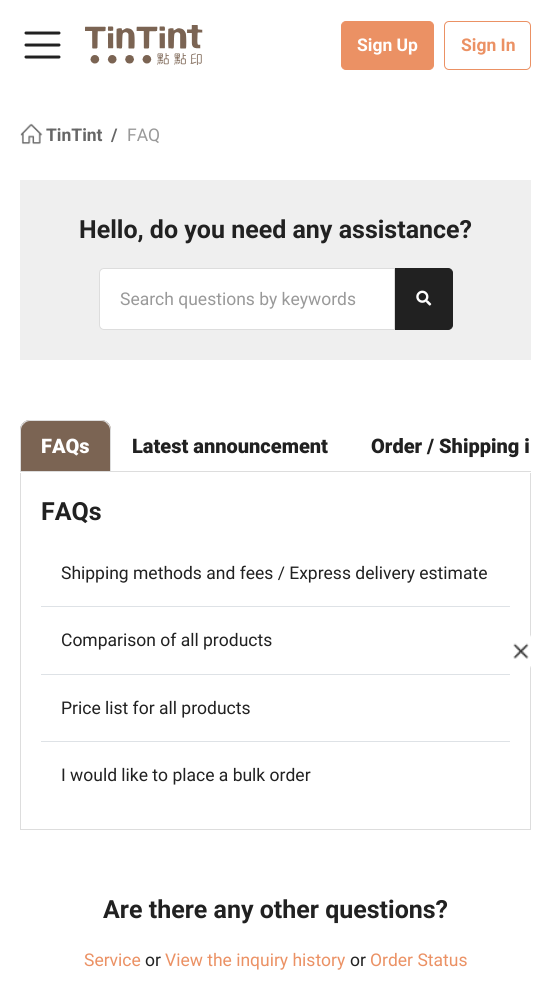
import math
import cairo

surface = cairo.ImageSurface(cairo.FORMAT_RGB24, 551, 990)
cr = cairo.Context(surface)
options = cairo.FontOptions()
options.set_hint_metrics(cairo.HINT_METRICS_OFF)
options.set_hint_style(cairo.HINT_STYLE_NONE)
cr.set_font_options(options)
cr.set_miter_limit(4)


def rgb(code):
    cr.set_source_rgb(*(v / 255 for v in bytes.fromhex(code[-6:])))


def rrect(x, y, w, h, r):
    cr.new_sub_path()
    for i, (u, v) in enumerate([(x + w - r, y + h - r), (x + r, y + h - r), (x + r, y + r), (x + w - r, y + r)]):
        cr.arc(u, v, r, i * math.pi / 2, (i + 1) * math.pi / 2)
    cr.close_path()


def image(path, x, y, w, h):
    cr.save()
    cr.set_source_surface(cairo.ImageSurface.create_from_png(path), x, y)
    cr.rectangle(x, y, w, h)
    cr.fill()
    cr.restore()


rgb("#ffffff")
cr.paint()
cr.new_path()
cr.move_to(26, 33)
cr.line_to(59, 33)
cr.move_to(26, 45)
cr.line_to(59, 45)
cr.move_to(26, 57)
cr.line_to(59, 57)
rgb("#212121")
cr.set_line_width(3)
cr.set_line_cap(cairo.LINE_CAP_ROUND)
cr.stroke()
image("img/1.png", 85, 25, 118, 40)
rgb("#eb9164")
rrect(341.5, 21.5, 92, 48, 4.5)
cr.fill_preserve()
cr.set_line_width(1)
cr.set_line_cap(cairo.LINE_CAP_BUTT)
cr.stroke()
rrect(444.5, 21.5, 86, 48, 4.5)
cr.stroke()
image("img/2.png", 20, 123, 23, 22)
rgb("#efefef")
cr.rectangle(20, 180, 511, 180)
cr.fill()
rgb("#ffffff")
cr.new_path()
cr.move_to(104, 268.5)
cr.line_to(394.5, 268.5)
cr.line_to(394.5, 329.5)
cr.line_to(104, 329.5)
cr.curve_to(101.5, 329.5, 99.5, 327.5, 99.5, 325)
cr.line_to(99.5, 273)
cr.curve_to(99.5, 270.5, 101.5, 268.5, 104, 268.5)
cr.close_path()
cr.fill_preserve()
rgb("#dddddd")
cr.stroke()
rgb("#212121")
cr.new_path()
cr.move_to(395.5, 268.5)
cr.line_to(448, 268.5)
cr.curve_to(450.5, 268.5, 452.5, 270.5, 452.5, 273)
cr.line_to(452.5, 325)
cr.curve_to(452.5, 327.5, 450.5, 329.5, 448, 329.5)
cr.line_to(395.5, 329.5)
cr.close_path()
cr.fill_preserve()
cr.stroke()
image("img/3.png", 416, 290, 16, 16)
rgb("#dddddd")
cr.rectangle(20, 471, 511, 1)
cr.fill()
rgb("#7b6453")
cr.new_path()
cr.move_to(30, 420)
cr.line_to(101, 420)
cr.curve_to(106.5, 420, 111, 424.5, 111, 430)
cr.line_to(111, 471)
cr.line_to(20, 471)
cr.line_to(20, 430)
cr.curve_to(20, 424.5, 24.5, 420, 30, 420)
cr.close_path()
cr.fill()
rgb("#dddddd")
cr.new_path()
cr.move_to(30, 420)
cr.curve_to(27, 420, 24, 421, 23, 423)
cr.line_to(24, 424)
cr.curve_to(25, 422, 28, 421, 30, 421)
cr.line_to(101, 421)
cr.curve_to(104, 421, 106, 422, 107, 424)
cr.line_to(108, 423)
cr.curve_to(107, 421, 104, 420, 101, 420)
cr.close_path()
cr.fill()
cr.new_path()
cr.move_to(108, 423)
cr.curve_to(110, 425, 111, 427, 111, 430)
cr.line_to(111, 472)
cr.line_to(110, 471)
cr.line_to(110, 430)
cr.curve_to(110, 428, 109, 425, 107, 424)
cr.close_path()
cr.fill()
cr.new_path()
cr.move_to(20, 430)
cr.line_to(20, 472)
cr.line_to(22, 471)
cr.line_to(21, 471)
cr.line_to(21, 430)
cr.curve_to(21, 428, 22, 425, 24, 424)
cr.line_to(23, 423)
cr.curve_to(21, 424, 20, 427, 20, 430)
cr.close_path()
cr.fill()
for x, y, w, h, color in [
    (530, 473, 1, 357, "#dddddd"),
    (20, 829, 511, 1, "#dddddd"),
    (20, 473, 1, 357, "#dddddd"),
    (41, 606, 469, 1, "#dee2e6"),
    (41, 674, 469, 1, "#dee2e6"),
    (41, 741, 469, 1, "#dee2e6"),
]:
    rgb(color)
    cr.rectangle(x, y, w, h)
    cr.fill()
image("img/4.png", 513, 635, 18, 33)
cr.select_font_face("Roboto", cairo.FONT_SLANT_NORMAL, cairo.FONT_WEIGHT_BOLD)
cr.set_font_size(17.5)
rgb("#ffffff")
cr.move_to(357, 51)
cr.show_text("Sign Up")
rgb("#eb9164")
cr.move_to(461, 51)
cr.show_text("Sign In")
rgb("#666666")
cr.move_to(46, 141)
cr.show_text("TinTint")
cr.move_to(111, 141)
cr.show_text("/")
cr.select_font_face("Roboto")
rgb("#999999")
cr.move_to(127, 141)
cr.show_text("FAQ")
cr.select_font_face("Roboto", cairo.FONT_SLANT_NORMAL, cairo.FONT_WEIGHT_BOLD)
cr.set_font_size(25)
rgb("#212121")
cr.move_to(79, 238)
cr.show_text("Hello, do you need any assistance?")
cr.select_font_face("Roboto")
cr.set_font_size(17.5)
rgb("#999999")
cr.move_to(120, 305)
cr.show_text("Search questions by keywords")
cr.select_font_face("Roboto Black")
cr.set_font_size(20)
rgb("#ffffff")
cr.move_to(41, 453)
cr.show_text("FAQs")
rgb("#212121")
cr.move_to(132, 453)
cr.show_text("Latest announcement")
cr.move_to(371, 453)
cr.show_text("Order / Shipping i")
cr.select_font_face("Roboto", cairo.FONT_SLANT_NORMAL, cairo.FONT_WEIGHT_BOLD)
cr.set_font_size(25)
cr.move_to(41, 520)
cr.show_text("FAQs")
cr.select_font_face("Roboto")
cr.set_font_size(17.5)
for x, y, s in [
    (61, 579, "Shipping methods and fees / Express delivery estimate"),
    (61, 646, "Comparison of all products"),
    (61, 714, "Price list for all products"),
    (61, 781, "I would like to place a bulk order"),
]:
    cr.move_to(x, y)
    cr.show_text(s)
cr.select_font_face("Roboto", cairo.FONT_SLANT_NORMAL, cairo.FONT_WEIGHT_BOLD)
cr.set_font_size(25)
cr.move_to(103, 918)
cr.show_text("Are there any other questions?")
cr.select_font_face("Roboto")
cr.set_font_size(17.5)
rgb("#eb9164")
cr.move_to(84, 966)
cr.show_text("Service")
rgb("#212121")
cr.move_to(145, 966)
cr.show_text("or")
rgb("#eb9164")
cr.move_to(165, 966)
cr.show_text("View the inquiry history")
rgb("#212121")
cr.move_to(350, 966)
cr.show_text("or")
rgb("#eb9164")
cr.move_to(370, 966)
cr.show_text("Order Status")
surface.write_to_png("page.png")
